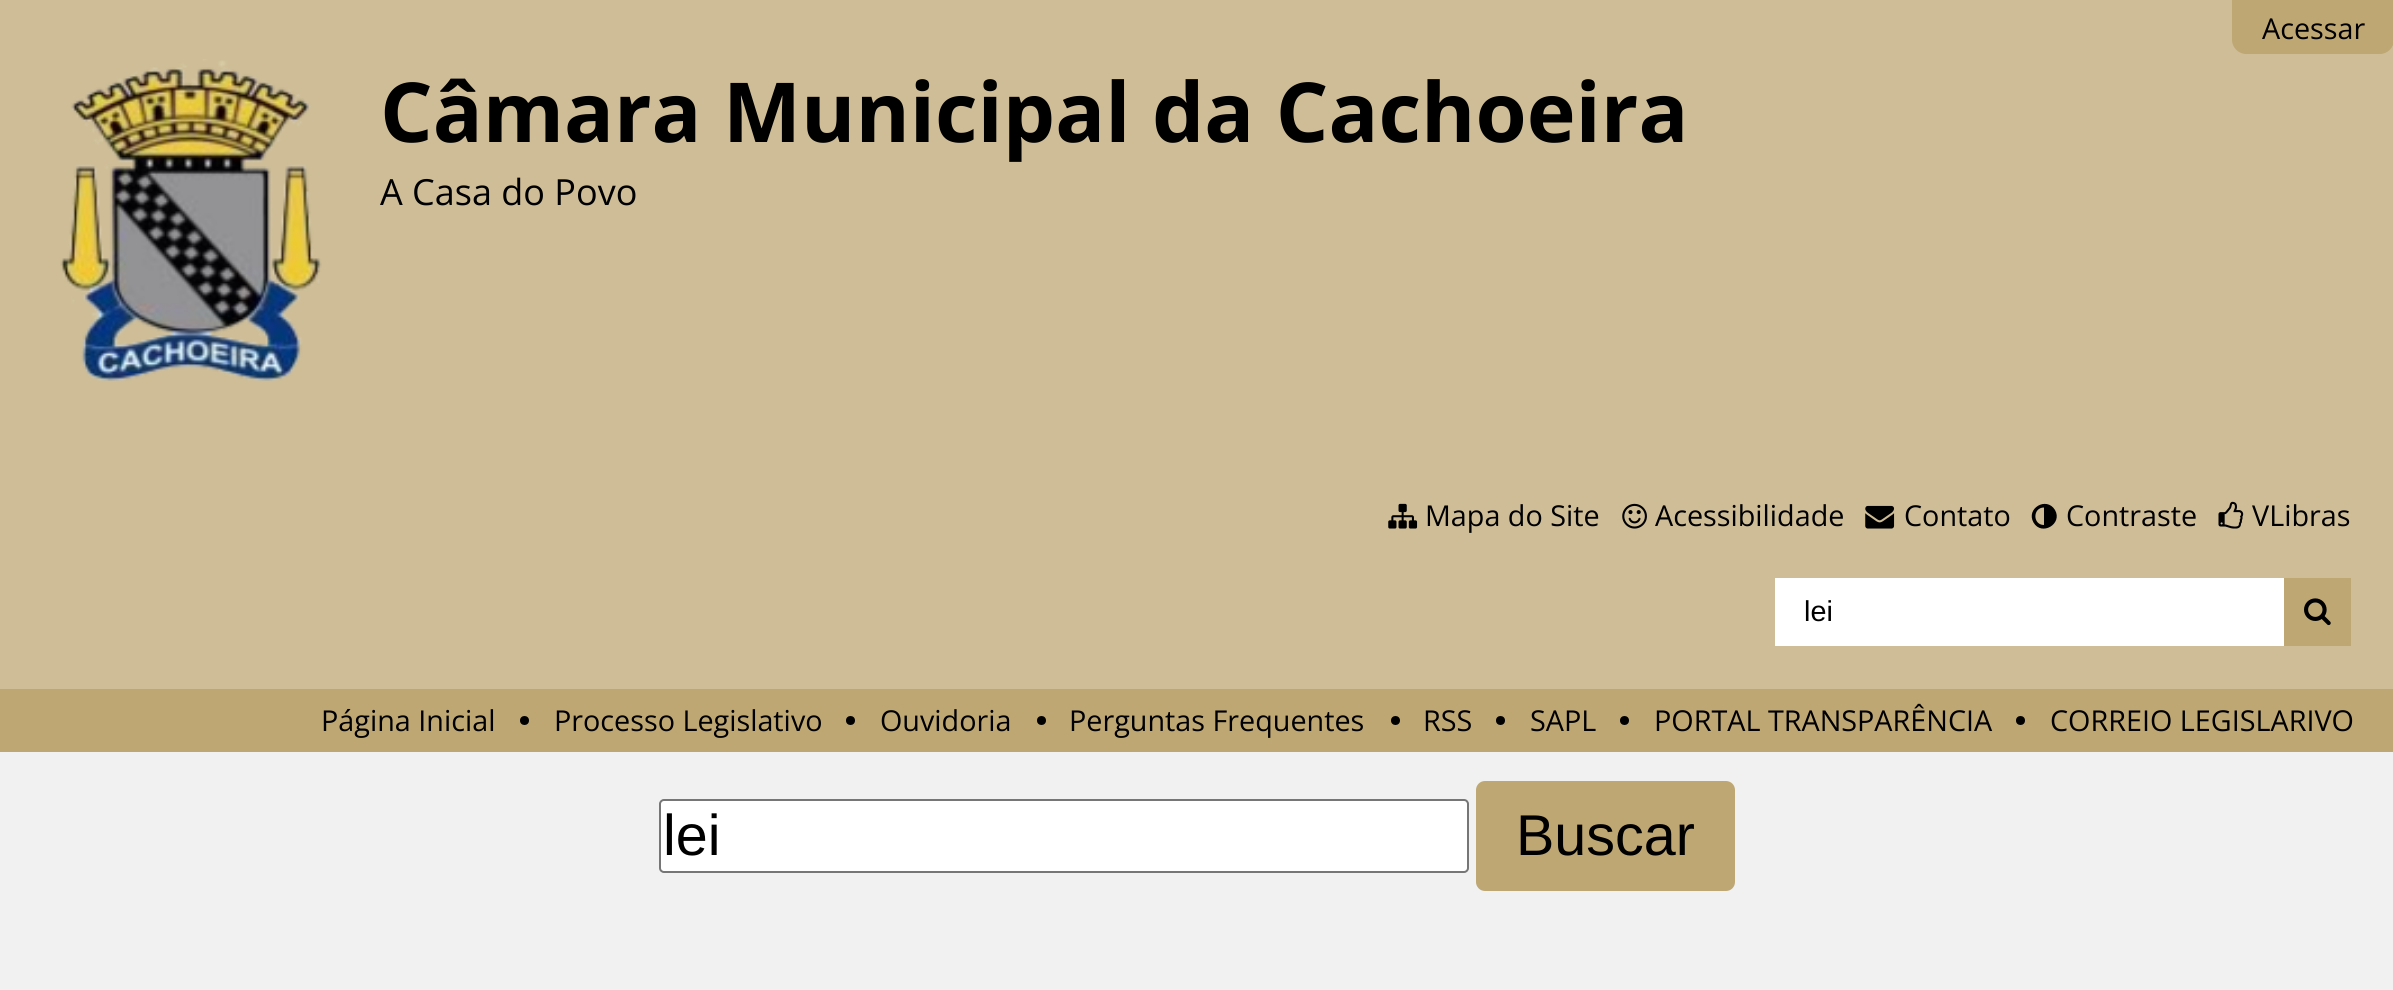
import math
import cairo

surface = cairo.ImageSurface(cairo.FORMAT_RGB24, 2393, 990)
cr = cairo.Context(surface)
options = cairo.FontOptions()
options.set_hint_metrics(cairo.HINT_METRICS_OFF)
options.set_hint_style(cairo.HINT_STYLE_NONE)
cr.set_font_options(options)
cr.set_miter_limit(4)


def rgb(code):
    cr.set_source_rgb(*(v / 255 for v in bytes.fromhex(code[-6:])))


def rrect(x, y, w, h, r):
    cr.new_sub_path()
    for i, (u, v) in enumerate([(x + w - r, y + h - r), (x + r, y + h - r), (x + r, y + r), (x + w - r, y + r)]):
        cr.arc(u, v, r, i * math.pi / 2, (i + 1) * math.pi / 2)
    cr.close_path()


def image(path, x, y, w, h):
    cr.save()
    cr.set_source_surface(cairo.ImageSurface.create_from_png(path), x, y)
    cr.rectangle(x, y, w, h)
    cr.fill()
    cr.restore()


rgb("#f1f1f1")
cr.paint()
rgb("#cebd96")
cr.rectangle(0, 0, 2393, 689)
cr.fill()
rgb("#bea773")
cr.new_path()
cr.move_to(2232, 0)
cr.line_to(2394, 0)
cr.line_to(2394, 40)
cr.curve_to(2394, 47.5, 2387.5, 54, 2380, 54)
cr.line_to(2246, 54)
cr.curve_to(2238.5, 54, 2232, 47.5, 2232, 40)
cr.close_path()
cr.fill()
image("img/1.png", 60, 59, 262, 322)
image("img/2.png", 1388, 503, 30, 26)
image("img/3.png", 1622, 503, 25, 26)
image("img/4.png", 1865, 505, 30, 24)
rgb("#000000")
cr.new_path()
cr.move_to(2044, 525)
cr.line_to(2044, 507.5)
cr.curve_to(2032.5, 507.5, 2032.5, 525, 2044, 525)
cr.close_path()
cr.move_to(2055, 510)
cr.curve_to(2063, 524, 2041.5, 536.5, 2033.5, 522.5)
cr.curve_to(2025.5, 508.5, 2046.5, 496, 2055, 510)
cr.close_path()
cr.fill()
image("img/5.png", 2218, 501, 26, 28)
rgb("#ffffff")
cr.rectangle(1775, 578, 509, 68)
cr.fill()
rgb("#bea773")
cr.rectangle(2284, 578, 67, 68)
cr.fill()
image("img/6.png", 2304, 598, 27, 28)
cr.rectangle(0, 689, 2393, 63)
cr.fill()
rgb("#000000")
cr.arc(524.5, 720.5, 4.5, 0, 2 * math.pi)
cr.fill()
cr.arc(850.5, 720.5, 4.5, 0, 2 * math.pi)
cr.fill()
cr.arc(1041.5, 720.5, 4.5, 0, 2 * math.pi)
cr.fill()
cr.arc(1395.5, 720.5, 4.5, 0, 2 * math.pi)
cr.fill()
cr.arc(1500.5, 720.5, 4.5, 0, 2 * math.pi)
cr.fill()
cr.arc(1624.5, 720.5, 4.5, 0, 2 * math.pi)
cr.fill()
cr.arc(2020.5, 720.5, 4.5, 0, 2 * math.pi)
cr.fill()
rgb("#ffffff")
rrect(660, 800, 808, 72, 4)
cr.fill_preserve()
rgb("#767676")
cr.stroke()
rgb("#bea773")
rrect(1476, 781, 259, 110, 9)
cr.fill()
cr.select_font_face("Open Sans")
cr.set_font_size(28.75)
rgb("#000000")
cr.move_to(2262, 39)
cr.show_text("Acessar")
cr.select_font_face("Open Sans", cairo.FONT_SLANT_NORMAL, cairo.FONT_WEIGHT_BOLD)
cr.set_font_size(82.75)
cr.move_to(380, 142)
cr.show_text("Câmara Municipal da Cachoeira")
cr.select_font_face("Open Sans")
cr.set_font_size(36)
cr.move_to(380, 205)
cr.show_text("A Casa do Povo")
cr.set_font_size(28.75)
for x, y, s in [
    (1425, 526, "Mapa do Site"),
    (1655, 526, "Acessibilidade"),
    (1904, 526, "Contato"),
    (2066, 526, "Contraste"),
    (2252, 526, "VLibras"),
]:
    cr.move_to(x, y)
    cr.show_text(s)
cr.select_font_face("Liberation Sans")
cr.move_to(1804, 621)
cr.show_text("lei")
cr.select_font_face("Open Sans")
for x, y, s in [
    (321, 731, "Página Inicial"),
    (554, 731, "Processo Legislativo"),
    (880, 731, "Ouvidoria"),
    (1069, 731, "Perguntas Frequentes"),
    (1423, 731, "RSS"),
    (1530, 731, "SAPL"),
    (1654, 731, "PORTAL TRANSPARÊNCIA"),
    (2050, 731, "CORREIO LEGISLARIVO"),
]:
    cr.move_to(x, y)
    cr.show_text(s)
cr.select_font_face("Liberation Sans")
cr.set_font_size(57.5)
cr.move_to(663, 855)
cr.show_text("lei")
cr.move_to(1516, 855)
cr.show_text("Buscar")
surface.write_to_png("page.png")
